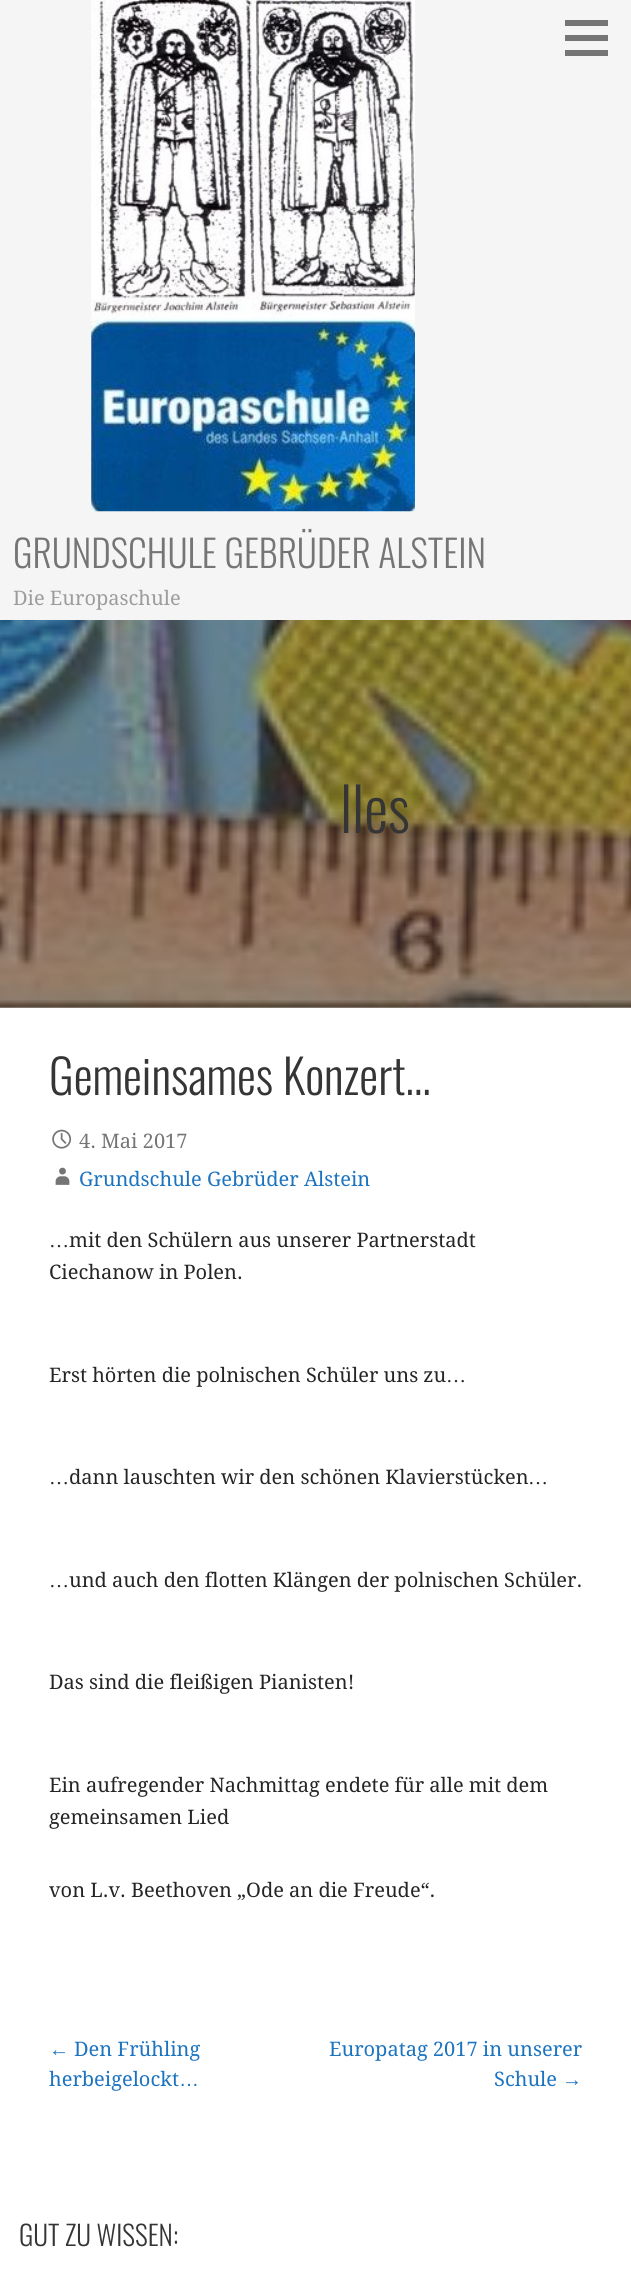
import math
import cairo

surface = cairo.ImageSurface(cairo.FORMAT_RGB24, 631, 2278)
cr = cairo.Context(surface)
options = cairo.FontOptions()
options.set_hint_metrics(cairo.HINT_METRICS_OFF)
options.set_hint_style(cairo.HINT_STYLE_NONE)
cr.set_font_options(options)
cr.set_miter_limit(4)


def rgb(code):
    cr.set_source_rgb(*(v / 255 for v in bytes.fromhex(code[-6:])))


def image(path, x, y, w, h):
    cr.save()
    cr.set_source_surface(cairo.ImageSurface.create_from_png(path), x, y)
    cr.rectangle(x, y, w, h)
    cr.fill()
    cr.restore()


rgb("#ffffff")
cr.paint()
rgb("#a0a1a1")
cr.rectangle(0, 1007, 631, 1)
cr.fill()
image("img/1.png", 0, 620, 631, 388)
for x, y, w, h, color in [
    (0, 0, 631, 620, "#f5f5f5"),
    (565, 20, 43, 6, "#757575"),
    (565, 35, 43, 6, "#757575"),
    (565, 50, 43, 6, "#757575"),
]:
    rgb(color)
    cr.rectangle(x, y, w, h)
    cr.fill()
image("img/2.png", 91, 0, 324, 512)
image("img/3.png", 52, 1129, 20, 20)
image("img/4.png", 55, 1167, 15, 18)
cr.select_font_face("Oswald Light")
cr.set_font_size(37.5)
cr.move_to(13, 568)
cr.show_text("GRUNDSCHULE GEBRÜDER ALSTEIN")
cr.select_font_face("Droid Serif")
cr.set_font_size(20)
rgb("#9b9c9c")
cr.move_to(13, 605)
cr.show_text("Die Europaschule")
cr.select_font_face("Oswald Light")
cr.set_font_size(60)
rgb("#353535")
cr.move_to(340, 833)
cr.show_text("lles")
cr.set_font_size(47.5)
cr.move_to(49, 1095)
cr.show_text("Gemeinsames Konzert…")
cr.select_font_face("Droid Serif")
cr.set_font_size(20)
rgb("#757575")
cr.move_to(79, 1148)
cr.show_text("4. Mai 2017")
rgb("#1c73bf")
cr.move_to(79, 1186)
cr.show_text("Grundschule Gebrüder Alstein")
cr.select_font_face("Liberation Serif")
rgb("#252525")
cr.move_to(49, 1247)
cr.show_text("…")
cr.select_font_face("Droid Serif")
for x, y, s in [
    (69, 1247, "mit den Schülern aus unserer Partnerstadt"),
    (49, 1279, "Ciechanow in Polen."),
    (49, 1382, "Erst hörten die polnischen Schüler uns zu"),
]:
    cr.move_to(x, y)
    cr.show_text(s)
cr.select_font_face("Liberation Serif")
cr.move_to(446, 1382)
cr.show_text("…")
cr.move_to(49, 1484)
cr.show_text("…")
cr.select_font_face("Droid Serif")
cr.move_to(69, 1484)
cr.show_text("dann lauschten wir den schönen Klavierstücken")
cr.select_font_face("Liberation Serif")
cr.move_to(528, 1484)
cr.show_text("…")
cr.move_to(49, 1587)
cr.show_text("…")
cr.select_font_face("Droid Serif")
for x, y, s in [
    (69, 1587, "und auch den flotten Klängen der polnischen Schüler."),
    (49, 1689, "Das sind die fleißigen Pianisten!"),
    (49, 1792, "Ein aufregender Nachmittag endete für alle mit dem"),
    (49, 1824, "gemeinsamen Lied"),
    (49, 1897, "von L.v. Beethoven „Ode an die Freude“."),
]:
    cr.move_to(x, y)
    cr.show_text(s)
cr.select_font_face("Liberation Sans")
rgb("#1c73bf")
cr.move_to(49, 2056)
cr.show_text("←")
cr.select_font_face("Droid Serif")
cr.move_to(74, 2056)
cr.show_text("Den Frühling")
cr.move_to(49, 2086)
cr.show_text("herbeigelockt")
cr.select_font_face("Liberation Sans")
cr.move_to(179, 2086)
cr.show_text("…")
cr.select_font_face("Droid Serif")
cr.move_to(329, 2056)
cr.show_text("Europatag 2017 in unserer")
cr.move_to(494, 2086)
cr.show_text("Schule")
cr.select_font_face("Liberation Sans")
cr.move_to(562, 2086)
cr.show_text("→")
cr.select_font_face("Oswald Light")
cr.set_font_size(27.5)
rgb("#353535")
cr.move_to(19, 2246)
cr.show_text("GUT ZU WISSEN:")
surface.write_to_png("page.png")
